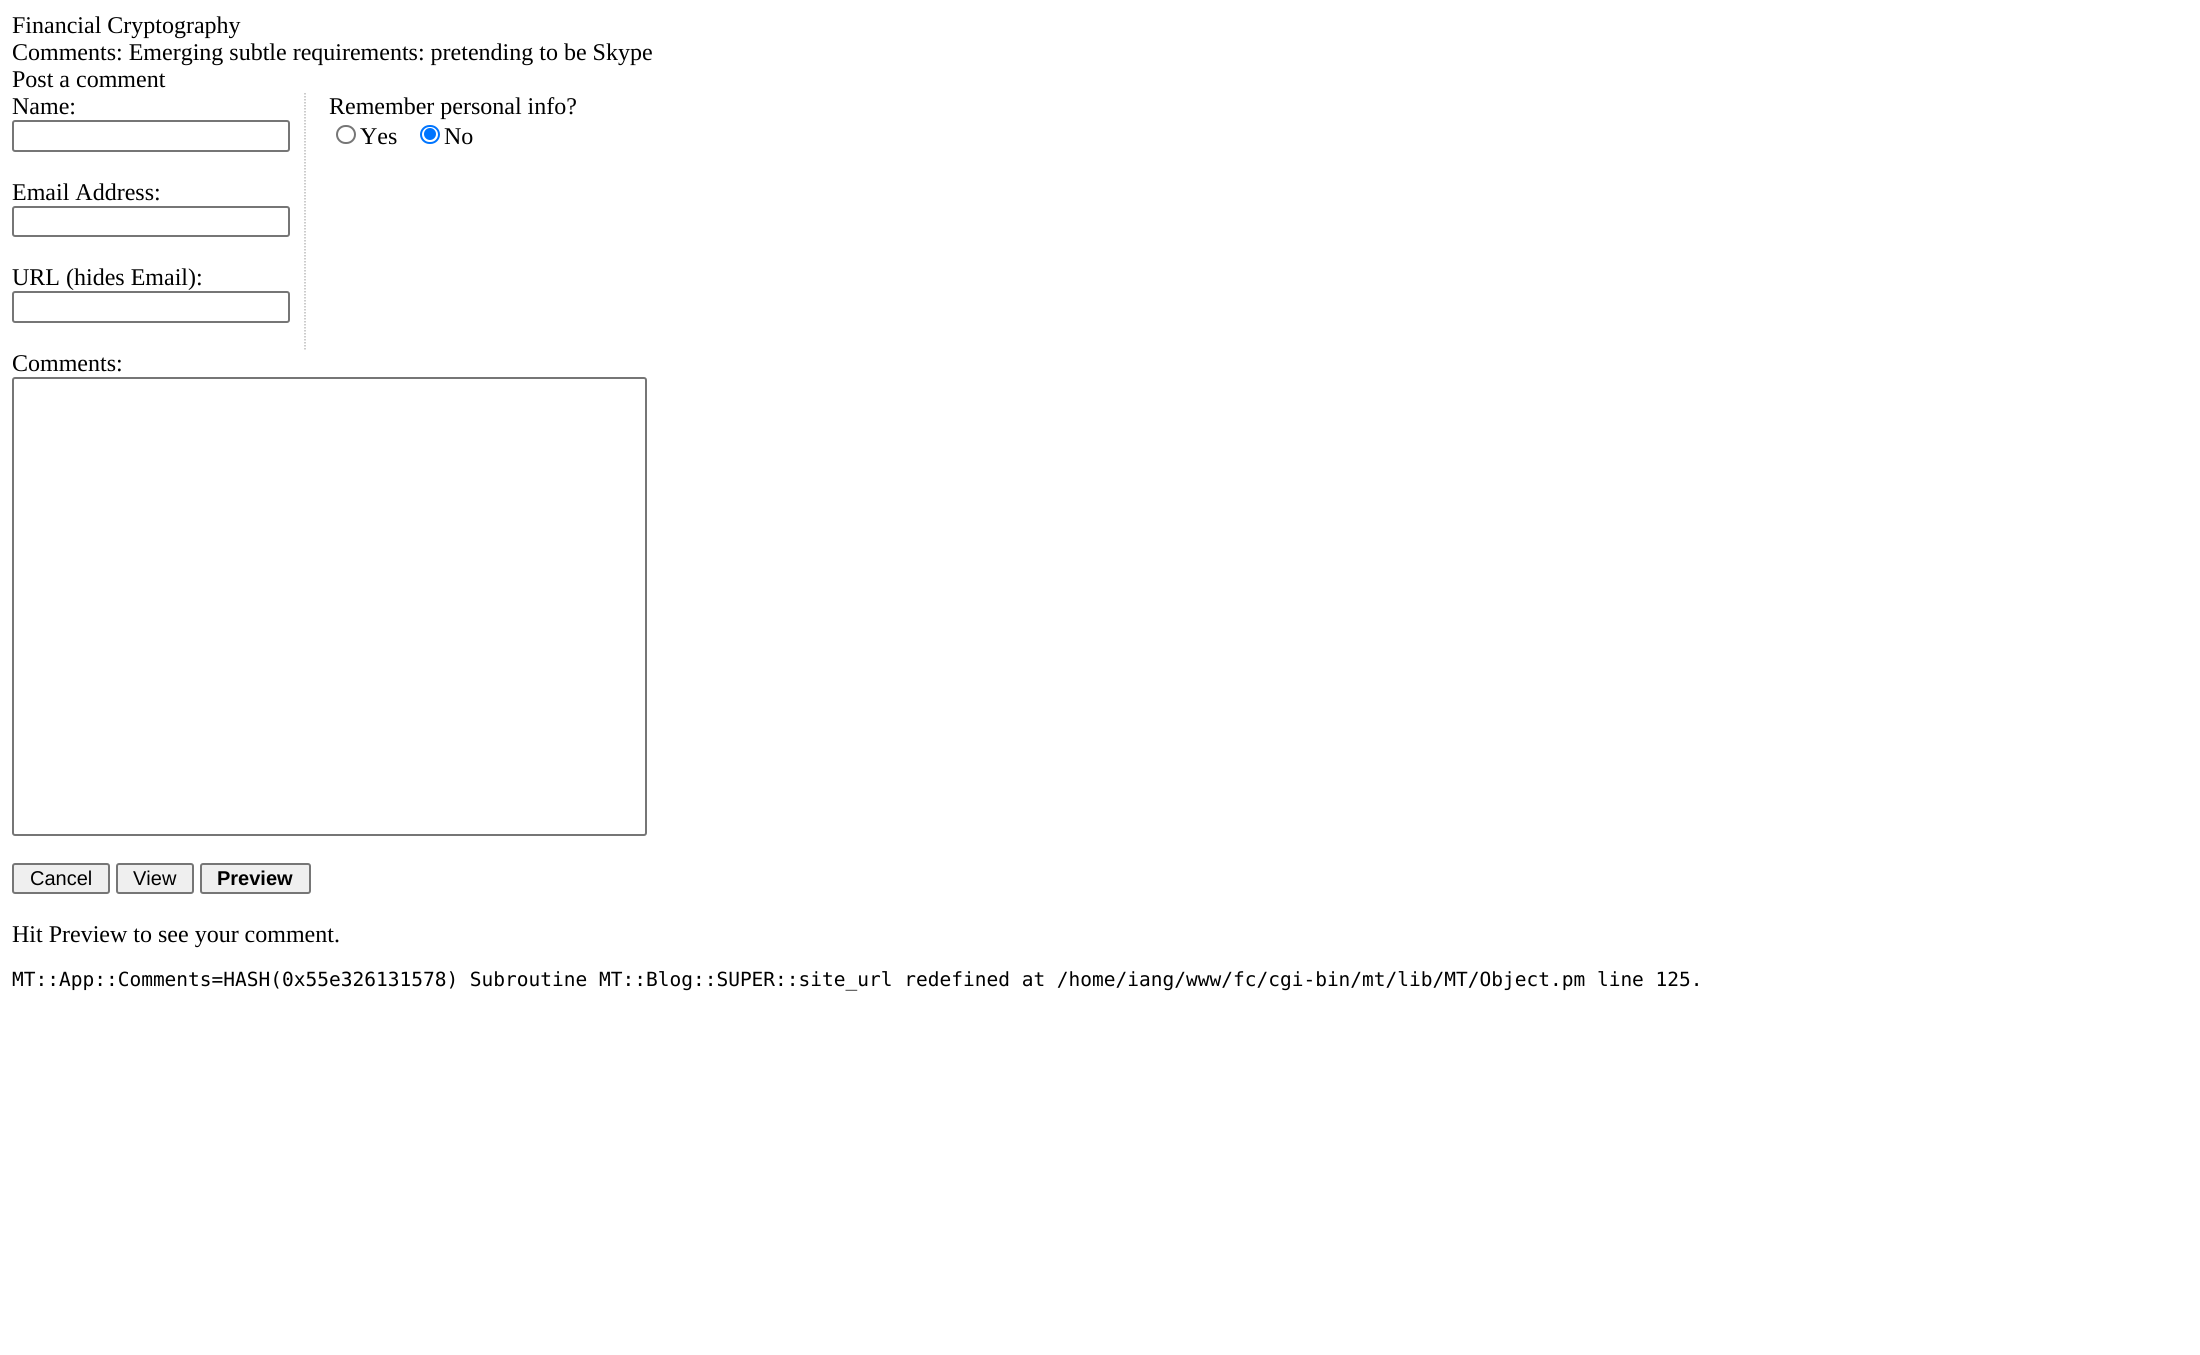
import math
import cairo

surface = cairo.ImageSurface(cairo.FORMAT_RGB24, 2200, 1355)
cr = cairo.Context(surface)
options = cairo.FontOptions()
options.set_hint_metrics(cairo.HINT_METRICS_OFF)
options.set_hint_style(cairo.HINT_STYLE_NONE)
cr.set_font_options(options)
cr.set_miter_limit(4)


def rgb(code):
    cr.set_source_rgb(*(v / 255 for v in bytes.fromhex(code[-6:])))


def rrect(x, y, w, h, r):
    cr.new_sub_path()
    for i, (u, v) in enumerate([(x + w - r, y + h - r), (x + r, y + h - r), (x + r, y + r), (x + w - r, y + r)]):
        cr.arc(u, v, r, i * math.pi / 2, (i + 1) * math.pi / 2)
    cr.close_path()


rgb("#ffffff")
cr.paint()
cr.new_path()
cr.move_to(305, 93)
cr.line_to(305, 349.5)
rgb("#bbbbbb")
cr.set_line_width(1.5)
cr.set_dash([1.5, 1.5])
cr.stroke()
rrect(13, 121, 276, 30, 2)
rgb("#767676")
cr.set_line_width(2)
cr.set_dash([])
cr.stroke()
rrect(13, 207, 276, 29, 2)
cr.stroke()
rrect(13, 292, 276, 30, 2)
cr.stroke()
rrect(337, 126, 18, 17, 8.5)
cr.stroke()
rrect(421, 126, 18, 17, 8.5)
rgb("#0075ff")
cr.stroke()
cr.arc(430, 134, 6, 0, 2 * math.pi)
cr.fill()
rrect(13, 378, 633, 457, 2)
rgb("#767676")
cr.stroke()
rgb("#efefef")
rrect(13, 864, 96, 29, 2)
cr.fill_preserve()
rgb("#767676")
cr.stroke()
rgb("#efefef")
rrect(117, 864, 76, 29, 2)
cr.fill_preserve()
rgb("#767676")
cr.stroke()
rgb("#efefef")
rrect(201, 864, 109, 29, 2)
cr.fill_preserve()
rgb("#767676")
cr.stroke()
cr.select_font_face("Liberation Serif")
cr.set_font_size(24)
rgb("#000000")
for x, y, s in [
    (12, 33, "Financial Cryptography"),
    (12, 60, "Comments: Emerging subtle requirements: pretending to be Skype"),
    (12, 87, "Post a comment"),
    (12, 114, "Name:"),
    (12, 200, "Email Address:"),
    (12, 285, "URL (hides Email):"),
    (329, 114, "Remember personal info?"),
    (360, 144, "Yes"),
    (444, 144, "No"),
    (12, 371, "Comments:"),
]:
    cr.move_to(x, y)
    cr.show_text(s)
cr.select_font_face("Liberation Sans")
cr.set_font_size(20)
cr.move_to(30, 885)
cr.show_text("Cancel")
cr.move_to(133, 885)
cr.show_text("View")
cr.select_font_face("Liberation Sans", cairo.FONT_SLANT_NORMAL, cairo.FONT_WEIGHT_BOLD)
cr.move_to(217, 885)
cr.show_text("Preview")
cr.select_font_face("Liberation Serif")
cr.set_font_size(24)
cr.move_to(12, 942)
cr.show_text("Hit Preview to see your comment.")
cr.select_font_face("DejaVu Sans Mono")
cr.set_font_size(19.5)
cr.move_to(12, 986)
cr.show_text("MT::App::Comments=HASH(0x55e326131578) Subroutine MT::Blog::SUPER::site_url redefined at /home/iang/www/fc/cgi-bin/mt/lib/MT/Object.pm line 125.")
surface.write_to_png("page.png")
